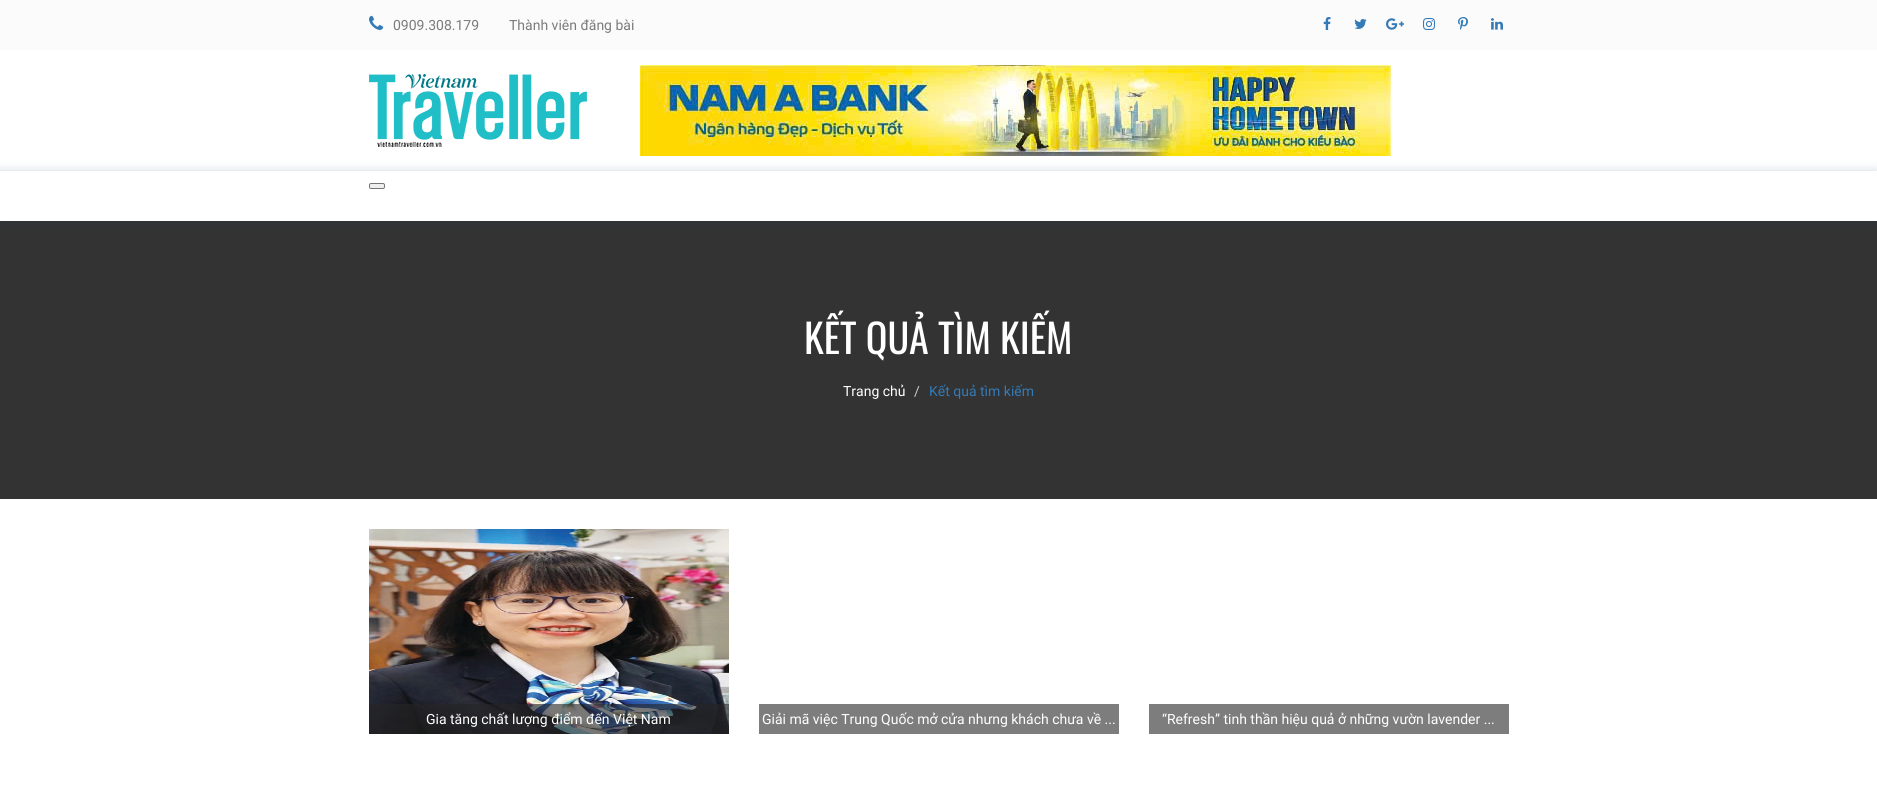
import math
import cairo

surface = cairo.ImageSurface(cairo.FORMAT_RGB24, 1877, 786)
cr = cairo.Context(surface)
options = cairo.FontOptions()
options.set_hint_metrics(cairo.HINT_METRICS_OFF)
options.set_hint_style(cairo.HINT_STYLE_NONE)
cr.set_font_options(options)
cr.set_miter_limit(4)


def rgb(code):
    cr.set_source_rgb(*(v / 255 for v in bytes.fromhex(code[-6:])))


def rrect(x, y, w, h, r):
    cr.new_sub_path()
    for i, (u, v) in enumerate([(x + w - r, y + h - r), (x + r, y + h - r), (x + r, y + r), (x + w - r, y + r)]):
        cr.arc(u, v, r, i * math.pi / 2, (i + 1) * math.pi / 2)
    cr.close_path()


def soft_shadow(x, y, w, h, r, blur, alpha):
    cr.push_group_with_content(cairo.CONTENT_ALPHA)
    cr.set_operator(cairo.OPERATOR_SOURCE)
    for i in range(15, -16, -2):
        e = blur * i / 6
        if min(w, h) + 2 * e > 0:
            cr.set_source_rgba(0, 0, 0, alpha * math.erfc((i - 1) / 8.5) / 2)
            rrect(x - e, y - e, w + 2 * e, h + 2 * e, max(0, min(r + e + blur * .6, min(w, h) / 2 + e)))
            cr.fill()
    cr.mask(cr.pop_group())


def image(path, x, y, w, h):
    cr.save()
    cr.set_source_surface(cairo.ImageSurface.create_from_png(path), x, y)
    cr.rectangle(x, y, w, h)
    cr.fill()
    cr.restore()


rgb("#ffffff")
cr.paint()
rgb("#fbfbfb")
cr.rectangle(0, 0, 1877, 50)
cr.fill()
image("img/1.png", 369, 15, 15, 15)
image("img/2.png", 1323, 17, 8, 13)
image("img/3.png", 1354, 19, 13, 10)
image("img/4.png", 1386, 18, 18, 12)
image("img/5.png", 1423, 18, 12, 12)
image("img/6.png", 1458, 17, 10, 13)
image("img/7.png", 1491, 18, 12, 12)
image("img/8.png", 369, 74, 218, 73)
image("img/9.png", 640, 65, 751, 91)
rgb("#333333")
cr.rectangle(0, 221, 1877, 278)
cr.fill()
cr.save()
cr.set_fill_rule(cairo.FILL_RULE_EVEN_ODD)
cr.new_path()
cr.move_to(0, 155)
cr.line_to(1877, 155)
cr.line_to(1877, 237)
cr.line_to(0, 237)
cr.close_path()
cr.move_to(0, 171)
cr.line_to(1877, 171)
cr.line_to(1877, 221)
cr.line_to(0, 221)
cr.close_path()
cr.clip()
rgb("#152f5f")
soft_shadow(0, 171, 1877, 50, 0, 5, 0.2)
cr.restore()
rgb("#efefef")
rrect(369.5, 183.5, 15, 5, 1.5)
cr.fill_preserve()
rgb("#767676")
cr.set_line_width(1)
cr.stroke()
image("img/10.png", 369, 529, 360, 205)
cr.set_source_rgba(0.153, 0.149, 0.149, 0.6)
cr.rectangle(369, 704, 360, 30)
cr.fill()
rgb("#7d7d7d")
cr.rectangle(759, 704, 360, 30)
cr.rectangle(1149, 704, 360, 30)
cr.fill()
cr.select_font_face("Roboto")
cr.set_font_size(14)
rgb("#7c7b7b")
cr.move_to(393, 30)
cr.show_text("0909.308.179")
cr.move_to(509, 30)
cr.show_text("Thành viên đăng bài")
cr.select_font_face("Oswald")
cr.set_font_size(40)
rgb("#ffffff")
cr.move_to(804, 354)
cr.show_text("KẾT QUẢ TÌM KIẾM")
cr.select_font_face("Roboto")
cr.set_font_size(14)
cr.move_to(843, 396)
cr.show_text("Trang chủ")
rgb("#cccccc")
cr.move_to(914, 396)
cr.show_text("/")
rgb("#337ab7")
cr.move_to(929, 396)
cr.show_text("Kết quả tìm kiếm")
rgb("#ffffff")
for x, y, s in [
    (426, 724, "Gia tăng chất lượng điểm đến Việt Nam"),
    (762, 724, "Giải mã việc Trung Quốc mở cửa nhưng khách chưa về ..."),
    (1162, 724, "“Refresh” tinh thần hiệu quả ở những vườn lavender ..."),
]:
    cr.move_to(x, y)
    cr.show_text(s)
surface.write_to_png("page.png")
